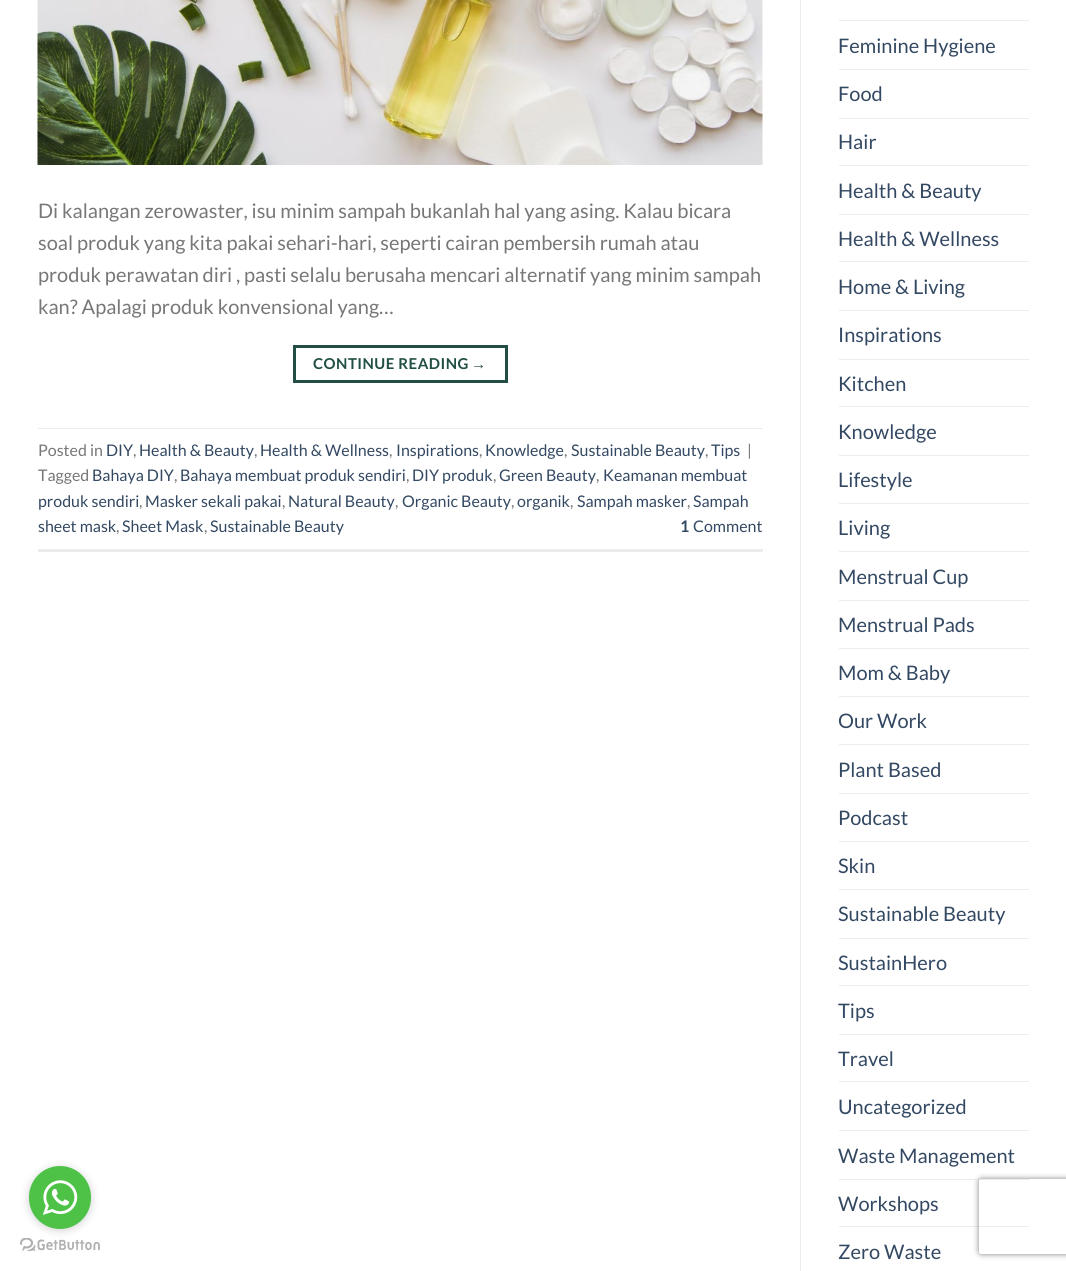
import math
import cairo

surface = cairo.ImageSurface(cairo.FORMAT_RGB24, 1066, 1271)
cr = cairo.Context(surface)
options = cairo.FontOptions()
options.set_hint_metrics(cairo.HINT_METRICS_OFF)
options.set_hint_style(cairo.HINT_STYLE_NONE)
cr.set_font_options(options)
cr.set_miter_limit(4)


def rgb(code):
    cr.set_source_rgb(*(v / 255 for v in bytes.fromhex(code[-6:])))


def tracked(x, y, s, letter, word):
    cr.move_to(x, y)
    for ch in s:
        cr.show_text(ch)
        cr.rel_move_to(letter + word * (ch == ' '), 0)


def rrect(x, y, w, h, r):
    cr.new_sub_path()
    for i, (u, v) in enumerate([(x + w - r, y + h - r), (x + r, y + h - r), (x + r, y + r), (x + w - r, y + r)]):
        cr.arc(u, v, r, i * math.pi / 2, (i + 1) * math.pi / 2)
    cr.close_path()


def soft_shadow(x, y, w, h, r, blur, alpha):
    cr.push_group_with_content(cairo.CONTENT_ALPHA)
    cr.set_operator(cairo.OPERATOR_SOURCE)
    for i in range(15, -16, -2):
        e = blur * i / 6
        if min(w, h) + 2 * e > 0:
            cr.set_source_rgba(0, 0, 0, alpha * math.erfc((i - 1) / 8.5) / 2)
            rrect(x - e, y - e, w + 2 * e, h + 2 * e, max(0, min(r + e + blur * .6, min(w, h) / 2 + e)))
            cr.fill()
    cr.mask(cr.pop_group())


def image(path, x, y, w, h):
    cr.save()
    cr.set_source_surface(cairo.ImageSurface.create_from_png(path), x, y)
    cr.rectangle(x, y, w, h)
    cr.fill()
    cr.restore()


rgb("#ffffff")
cr.paint()
image("img/1.png", 37, 0, 726, 165)
cr.rectangle(294.5, 346.5, 212, 35)
rgb("#214f44")
cr.set_line_width(3)
cr.stroke()
for x, y, w, h, color in [
    (38, 428, 725, 1, "#ececec"),
    (38, 549, 725, 3, "#ececec"),
    (800, 0, 1, 1271, "#ececec"),
    (839, 20, 190, 1, "#ececec"),
    (839, 69, 190, 1, "#ececec"),
    (839, 118, 190, 1, "#ececec"),
    (839, 165, 190, 1, "#ececec"),
    (839, 214, 190, 1, "#ececec"),
    (839, 261, 190, 1, "#ececec"),
    (839, 310, 190, 1, "#ececec"),
    (839, 359, 190, 1, "#ececec"),
    (839, 406, 190, 1, "#ececec"),
    (839, 455, 190, 1, "#ececec"),
    (839, 503, 190, 1, "#ececec"),
    (839, 551, 190, 1, "#ececec"),
    (839, 600, 190, 1, "#ececec"),
    (839, 648, 190, 1, "#ececec"),
    (839, 696, 190, 1, "#ececec"),
    (839, 744, 190, 1, "#ececec"),
    (839, 793, 190, 1, "#ececec"),
    (839, 841, 190, 1, "#ececec"),
    (839, 889, 190, 1, "#ececec"),
    (839, 938, 190, 1, "#ececec"),
    (839, 985, 190, 1, "#ececec"),
    (839, 1034, 190, 1, "#ececec"),
    (839, 1081, 190, 1, "#ececec"),
    (839, 1130, 190, 1, "#ececec"),
    (839, 1179, 190, 1, "#ececec"),
    (839, 1226, 190, 1, "#ececec"),
]:
    rgb(color)
    cr.rectangle(x, y, w, h)
    cr.fill()
image("img/3.png", 20, 1238, 80, 13)
rgb("#888888")
soft_shadow(29, 1168, 62, 62, 31, 4.5, 0.4)
rgb("#4dc247")
rrect(29, 1166, 62, 63, 31)
cr.fill()
image("img/2.png", 42, 1180, 36, 35)
cr.save()
cr.set_fill_rule(cairo.FILL_RULE_EVEN_ODD)
cr.new_path()
cr.move_to(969, 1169)
cr.line_to(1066, 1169)
cr.line_to(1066, 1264)
cr.line_to(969, 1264)
cr.close_path()
cr.move_to(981.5, 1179)
cr.line_to(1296.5, 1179)
cr.curve_to(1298, 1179, 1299, 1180, 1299, 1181.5)
cr.line_to(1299, 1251.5)
cr.curve_to(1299, 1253, 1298, 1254, 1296.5, 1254)
cr.line_to(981.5, 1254)
cr.curve_to(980, 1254, 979, 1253, 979, 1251.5)
cr.line_to(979, 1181.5)
cr.curve_to(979, 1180, 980, 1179, 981.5, 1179)
cr.close_path()
cr.clip()
rgb("#808080")
soft_shadow(979, 1179, 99, 75, 2.5, 3, 1)
cr.restore()
cr.select_font_face("Lato")
cr.set_font_size(20)
rgb("#777777")
for x, y, s in [
    (38, 218, "Di kalangan zerowaster, isu minim sampah bukanlah hal yang asing. Kalau bicara"),
    (38, 250, "soal produk yang kita pakai sehari-hari, seperti cairan pembersih rumah atau"),
    (38, 282, "produk perawatan diri , pasti selalu berusaha mencari alternatif yang minim sampah"),
    (38, 314, "kan? Apalagi produk konvensional yang…"),
]:
    cr.move_to(x, y)
    cr.show_text(s)
cr.select_font_face("Lato", cairo.FONT_SLANT_NORMAL, cairo.FONT_WEIGHT_BOLD)
cr.set_font_size(15)
rgb("#214f44")
tracked(313, 369, "CONTINUE READING", 0.5, 0)
cr.select_font_face("Liberation Sans", cairo.FONT_SLANT_NORMAL, cairo.FONT_WEIGHT_BOLD)
tracked(471, 369, "→", 0.5, 0)
cr.select_font_face("Lato")
cr.set_font_size(16)
rgb("#777777")
cr.move_to(38, 456)
cr.show_text("Posted in")
rgb("#334862")
cr.move_to(106, 456)
cr.show_text("DIY")
rgb("#777777")
cr.move_to(133, 456)
cr.show_text(",")
rgb("#334862")
cr.move_to(139, 456)
cr.show_text("Health & Beauty")
rgb("#777777")
cr.move_to(254, 456)
cr.show_text(",")
rgb("#334862")
cr.move_to(260, 456)
cr.show_text("Health & Wellness")
rgb("#777777")
cr.move_to(389, 456)
cr.show_text(",")
rgb("#334862")
cr.move_to(396, 456)
cr.show_text("Inspirations")
rgb("#777777")
cr.move_to(479, 456)
cr.show_text(",")
rgb("#334862")
cr.move_to(485, 456)
cr.show_text("Knowledge")
rgb("#777777")
cr.move_to(564, 456)
cr.show_text(",")
rgb("#334862")
cr.move_to(571, 456)
cr.show_text("Sustainable Beauty")
rgb("#777777")
cr.move_to(705, 456)
cr.show_text(",")
rgb("#334862")
cr.move_to(711, 456)
cr.show_text("Tips")
rgb("#777777")
cr.move_to(747, 456)
cr.show_text("|")
cr.move_to(38, 481)
cr.show_text("Tagged")
rgb("#334862")
cr.move_to(92, 481)
cr.show_text("Bahaya DIY")
rgb("#777777")
cr.move_to(174, 481)
cr.show_text(",")
rgb("#334862")
cr.move_to(180, 481)
cr.show_text("Bahaya membuat produk sendiri")
rgb("#777777")
cr.move_to(406, 481)
cr.show_text(",")
rgb("#334862")
cr.move_to(412, 481)
cr.show_text("DIY produk")
rgb("#777777")
cr.move_to(493, 481)
cr.show_text(",")
rgb("#334862")
cr.move_to(499, 481)
cr.show_text("Green Beauty")
rgb("#777777")
cr.move_to(596, 481)
cr.show_text(",")
rgb("#334862")
cr.move_to(603, 481)
cr.show_text("Keamanan membuat")
cr.move_to(38, 507)
cr.show_text("produk sendiri")
rgb("#777777")
cr.move_to(139, 507)
cr.show_text(",")
rgb("#334862")
cr.move_to(145, 507)
cr.show_text("Masker sekali pakai")
rgb("#777777")
cr.move_to(282, 507)
cr.show_text(",")
rgb("#334862")
cr.move_to(288, 507)
cr.show_text("Natural Beauty")
rgb("#777777")
cr.move_to(395, 507)
cr.show_text(",")
rgb("#334862")
cr.move_to(402, 507)
cr.show_text("Organic Beauty")
rgb("#777777")
cr.move_to(511, 507)
cr.show_text(",")
rgb("#334862")
cr.move_to(517, 507)
cr.show_text("organik")
rgb("#777777")
cr.move_to(570, 507)
cr.show_text(",")
rgb("#334862")
cr.move_to(577, 507)
cr.show_text("Sampah masker")
rgb("#777777")
cr.move_to(687, 507)
cr.show_text(",")
rgb("#334862")
cr.move_to(693, 507)
cr.show_text("Sampah")
cr.move_to(38, 532)
cr.show_text("sheet mask")
rgb("#777777")
cr.move_to(116, 532)
cr.show_text(",")
rgb("#334862")
cr.move_to(122, 532)
cr.show_text("Sheet Mask")
rgb("#777777")
cr.move_to(204, 532)
cr.show_text(",")
rgb("#334862")
cr.move_to(210, 532)
cr.show_text("Sustainable Beauty")
cr.select_font_face("Lato", cairo.FONT_SLANT_NORMAL, cairo.FONT_WEIGHT_BOLD)
cr.move_to(680, 532)
cr.show_text("1")
cr.select_font_face("Lato")
cr.move_to(693, 532)
cr.show_text("Comment")
cr.set_font_size(20)
for x, y, s in [
    (838, 53, "Feminine Hygiene"),
    (838, 101, "Food"),
    (838, 149, "Hair"),
    (838, 198, "Health & Beauty"),
    (838, 246, "Health & Wellness"),
    (838, 294, "Home & Living"),
    (838, 342, "Inspirations"),
    (838, 391, "Kitchen"),
    (838, 439, "Knowledge"),
    (838, 487, "Lifestyle"),
    (838, 535, "Living"),
    (838, 584, "Menstrual Cup"),
    (838, 632, "Menstrual Pads"),
    (838, 680, "Mom & Baby"),
    (838, 728, "Our Work"),
    (838, 777, "Plant Based"),
    (838, 825, "Podcast"),
    (838, 873, "Skin"),
    (838, 921, "Sustainable Beauty"),
    (838, 970, "SustainHero"),
    (838, 1018, "Tips"),
    (838, 1066, "Travel"),
    (838, 1114, "Uncategorized"),
    (838, 1163, "Waste Management"),
    (838, 1211, "Workshops"),
    (838, 1259, "Zero Waste"),
]:
    cr.move_to(x, y)
    cr.show_text(s)
surface.write_to_png("page.png")
